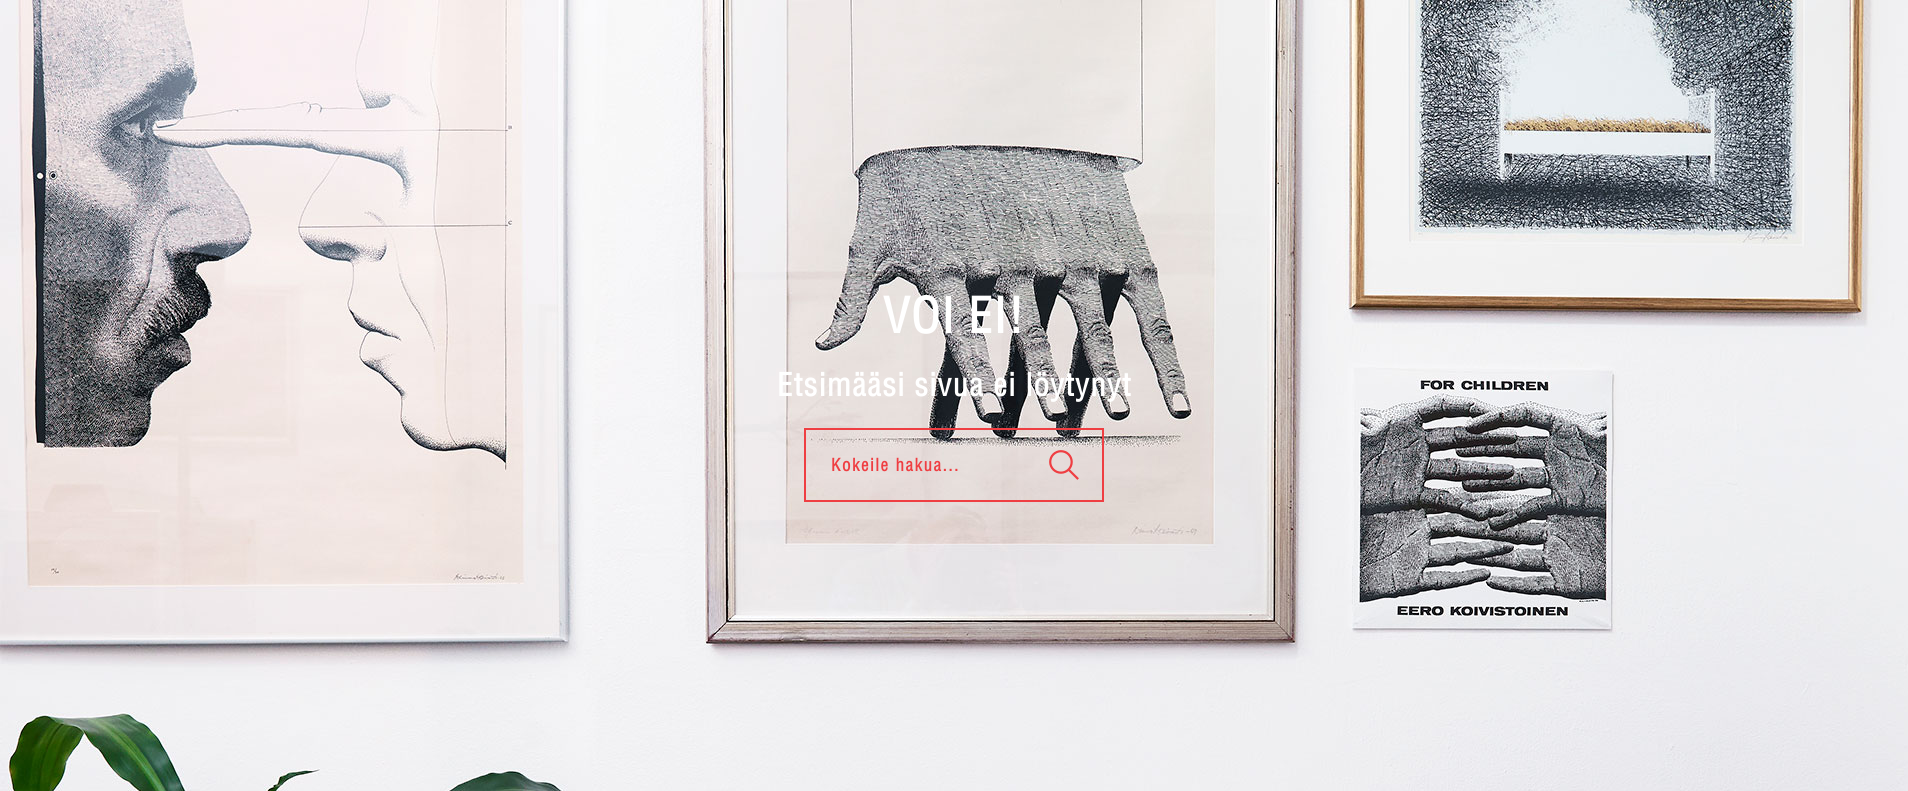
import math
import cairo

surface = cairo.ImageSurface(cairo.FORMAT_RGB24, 1908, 791)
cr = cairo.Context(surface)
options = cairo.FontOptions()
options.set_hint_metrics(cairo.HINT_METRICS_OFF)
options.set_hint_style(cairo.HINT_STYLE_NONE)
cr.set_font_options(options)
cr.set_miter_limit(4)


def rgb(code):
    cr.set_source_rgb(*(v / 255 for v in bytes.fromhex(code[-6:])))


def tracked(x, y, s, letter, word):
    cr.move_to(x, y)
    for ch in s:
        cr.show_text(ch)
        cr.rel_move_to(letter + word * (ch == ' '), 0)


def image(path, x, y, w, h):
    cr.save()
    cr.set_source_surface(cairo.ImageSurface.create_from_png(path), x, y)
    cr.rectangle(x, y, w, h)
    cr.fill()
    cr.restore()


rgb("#ffffff")
cr.paint()
image("img/1.png", 0, 0, 1908, 791)
cr.rectangle(805, 429, 298, 72)
rgb("#ef3e42")
cr.stroke()
image("img/2.png", 1049, 450, 30, 30)
cr.select_font_face("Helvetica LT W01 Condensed", cairo.FONT_SLANT_NORMAL, cairo.FONT_WEIGHT_BOLD)
cr.set_font_size(48)
rgb("#ffffff")
tracked(883, 333, "VOI EI!", 1, 0)
cr.set_font_size(31)
tracked(777, 396, "Etsimääsi sivua ei löytynyt", 1.25, 0)
cr.set_font_size(17)
rgb("#ef3e42")
tracked(831, 471, "Kokeile hakua...", 1.5, 0)
surface.write_to_png("page.png")
